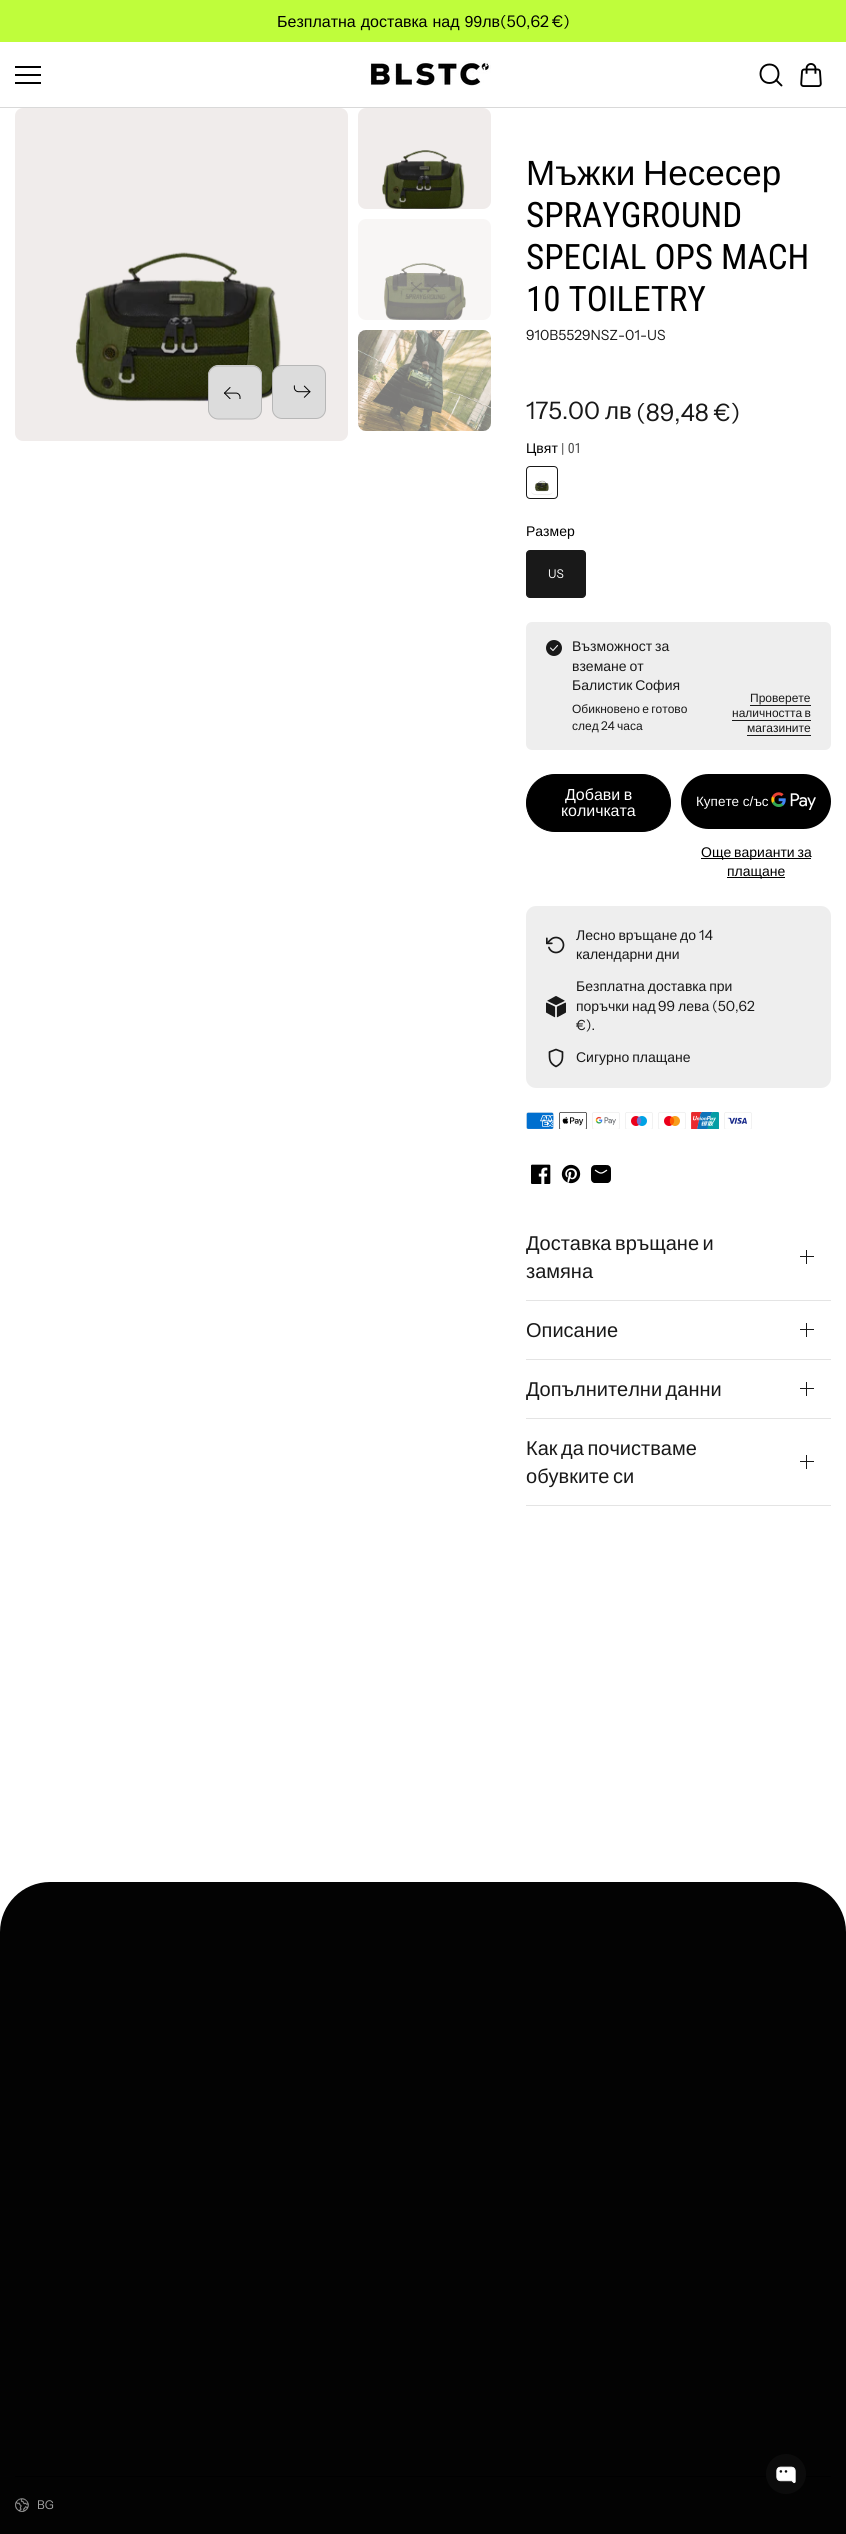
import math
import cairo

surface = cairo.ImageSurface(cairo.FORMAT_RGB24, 846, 2534)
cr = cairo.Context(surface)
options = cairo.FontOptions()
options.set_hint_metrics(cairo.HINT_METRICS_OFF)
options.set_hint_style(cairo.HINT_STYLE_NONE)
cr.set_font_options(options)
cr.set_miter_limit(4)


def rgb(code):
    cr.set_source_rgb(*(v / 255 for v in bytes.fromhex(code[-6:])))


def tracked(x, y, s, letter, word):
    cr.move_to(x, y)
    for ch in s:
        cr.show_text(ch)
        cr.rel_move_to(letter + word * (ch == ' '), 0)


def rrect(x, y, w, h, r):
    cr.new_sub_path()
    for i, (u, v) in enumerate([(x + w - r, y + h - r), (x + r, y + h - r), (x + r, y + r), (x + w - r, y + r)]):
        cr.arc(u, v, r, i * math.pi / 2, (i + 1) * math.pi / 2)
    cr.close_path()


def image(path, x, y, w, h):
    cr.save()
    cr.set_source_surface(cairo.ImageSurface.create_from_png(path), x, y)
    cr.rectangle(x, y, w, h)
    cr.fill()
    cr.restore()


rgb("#ffffff")
cr.paint()
for x, y, w, h, color in [
    (0, 0, 846, 42, "#bffd3b"),
    (0, 107, 846, 1, "#d9d9d9"),
    (15, 66, 26, 2, "#000000"),
    (15, 74, 26, 2, "#000000"),
    (15, 82, 26, 2, "#000000"),
]:
    rgb(color)
    cr.rectangle(x, y, w, h)
    cr.fill()
image("img/1.png", 370, 61, 121, 25)
cr.new_path()
cr.move_to(769.5, 83)
cr.curve_to(781.5, 83, 781.5, 64.5, 769.5, 64.5)
cr.curve_to(757.5, 64.5, 757.5, 83, 769.5, 83)
cr.close_path()
cr.move_to(776, 80)
cr.line_to(781.5, 85.5)
cr.set_line_width(1.9)
cr.set_line_cap(cairo.LINE_CAP_ROUND)
cr.set_line_join(cairo.LINE_JOIN_ROUND)
cr.stroke()
image("img/2.png", 800, 63, 22, 24)
rgb("#f0eceb")
rrect(15, 108, 333, 333, 8)
cr.fill()
image("img/3.png", 75, 252, 206, 150)
rgb("#dcdcdc")
cr.new_path()
cr.move_to(252, 419)
cr.line_to(218, 419)
cr.curve_to(213, 419, 208, 415, 208, 409)
cr.line_to(208, 375)
cr.curve_to(208, 370, 213, 365, 218, 365)
cr.line_to(252, 365)
cr.curve_to(258, 365, 262, 370, 262, 375)
cr.line_to(262, 409)
cr.curve_to(262, 415, 258, 419, 252, 419)
cr.close_path()
cr.fill()
cr.new_path()
cr.move_to(252, 419)
cr.line_to(218, 419)
cr.curve_to(213, 419, 208.5, 414.5, 208.5, 409.5)
cr.line_to(208.5, 375.5)
cr.curve_to(208.5, 370, 213, 366, 218, 366)
cr.line_to(252, 366)
cr.curve_to(257.5, 366, 261.5, 370, 261.5, 375.5)
cr.line_to(261.5, 409.5)
cr.curve_to(261.5, 414.5, 257.5, 419, 252, 419)
cr.close_path()
rgb("#b7b7b7")
cr.set_line_width(1)
cr.set_line_cap(cairo.LINE_CAP_BUTT)
cr.set_line_join(cairo.LINE_JOIN_MITER)
cr.stroke()
image("img/4.png", 224, 387, 17, 12)
rgb("#dcdcdc")
rrect(272.5, 365.5, 53, 53, 9.5)
cr.fill_preserve()
rgb("#b7b7b7")
cr.stroke()
image("img/5.png", 293, 385, 18, 13)
rgb("#f0eceb")
rrect(358, 108, 133, 101, 8)
cr.fill()
image("img/6.png", 382, 150, 83, 59)
rgb("#f8f6f5")
rrect(358, 219, 133, 101, 8)
cr.fill()
image("img/7.png", 384, 263, 82, 57)
rrect(358, 330, 133, 101, 8)
cr.fill()
image("img/8.png", 358, 330, 133, 101)
rrect(526.5, 466.5, 31, 32, 3.5)
rgb("#191919")
cr.stroke()
rgb("#edecec")
cr.new_path()
cr.move_to(531, 490)
cr.curve_to(531, 496.5, 537, 495, 542, 495)
cr.curve_to(547, 495, 553, 496.5, 553, 490)
cr.curve_to(553, 495.5, 545.5, 494, 542, 494)
cr.curve_to(538.5, 494, 531, 495.5, 531, 490)
cr.close_path()
cr.fill()
image("img/9.png", 534, 480, 15, 12)
rgb("#191919")
rrect(526.5, 550.5, 59, 47, 3.5)
cr.fill_preserve()
cr.stroke()
rgb("#eeeeee")
rrect(526, 622, 305, 128, 6)
cr.fill()
rgb("#191919")
cr.arc(554, 648, 8, 0, 2 * math.pi)
cr.fill()
cr.new_path()
cr.move_to(557.5, 645.5)
cr.line_to(553, 650.5)
cr.line_to(550.5, 648)
rgb("#ededee")
cr.set_line_width(1.1)
cr.set_line_cap(cairo.LINE_CAP_ROUND)
cr.set_line_join(cairo.LINE_JOIN_ROUND)
cr.stroke()
for x, y, w, h, color in [
    (750, 705, 61, 1, "#191919"),
    (732, 720, 79, 1, "#191919"),
    (747, 735, 64, 1, "#191919"),
]:
    rgb(color)
    cr.rectangle(x, y, w, h)
    cr.fill()
rgb("#000000")
rrect(526.5, 774.5, 144, 57, 28.5)
cr.fill_preserve()
cr.set_line_width(1)
cr.set_line_cap(cairo.LINE_CAP_BUTT)
cr.set_line_join(cairo.LINE_JOIN_MITER)
cr.stroke()
rrect(681, 774, 150, 55, 27.5)
cr.fill()
image("img/10.png", 771, 792, 45, 18)
cr.rectangle(701, 858, 110, 1)
cr.fill()
cr.rectangle(727, 877, 58, 1)
cr.fill()
rgb("#eeeeee")
rrect(526, 906, 305, 182, 10)
cr.fill()
image("img/11.png", 546, 936, 19, 18)
image("img/12.png", 546, 996, 20, 22)
cr.new_path()
cr.move_to(556, 1066.5)
cr.curve_to(563, 1063, 562.5, 1059, 562.5, 1052)
cr.line_to(556, 1049.5)
cr.line_to(549.5, 1052)
cr.curve_to(549.5, 1059, 549, 1063, 556, 1066.5)
cr.close_path()
rgb("#191919")
cr.set_line_width(1.7)
cr.set_line_cap(cairo.LINE_CAP_ROUND)
cr.set_line_join(cairo.LINE_JOIN_ROUND)
cr.stroke()
image("img/13.png", 526, 1112, 28, 17)
image("img/14.png", 559, 1112, 28, 17)
image("img/15.png", 592, 1112, 28, 17)
image("img/16.png", 625, 1112, 28, 17)
image("img/17.png", 658, 1112, 28, 17)
image("img/18.png", 691, 1112, 28, 17)
image("img/19.png", 724, 1112, 28, 17)
image("img/20.png", 531, 1164, 20, 20)
image("img/21.png", 561, 1164, 20, 20)
image("img/22.png", 591, 1165, 20, 18)
for x, y, w, h, color in [
    (526, 1300, 305, 1, "#e4e4e4"),
    (800, 1256, 14, 1, "#191919"),
    (806, 1250, 1, 14, "#191919"),
    (526, 1359, 305, 1, "#e4e4e4"),
    (800, 1329, 14, 1, "#191919"),
    (806, 1323, 1, 14, "#191919"),
    (526, 1418, 305, 1, "#e4e4e4"),
    (800, 1388, 14, 1, "#191919"),
    (806, 1382, 1, 14, "#191919"),
    (526, 1505, 305, 1, "#e4e4e4"),
    (800, 1461, 14, 1, "#191919"),
    (806, 1455, 1, 14, "#191919"),
]:
    rgb(color)
    cr.rectangle(x, y, w, h)
    cr.fill()
rgb("#030303")
cr.new_path()
cr.move_to(50, 1882)
cr.line_to(796, 1882)
cr.curve_to(823.5, 1882, 846, 1904.5, 846, 1932)
cr.line_to(846, 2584)
cr.line_to(0, 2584)
cr.line_to(0, 1932)
cr.curve_to(0, 1904.5, 22.5, 1882, 50, 1882)
cr.close_path()
cr.fill()
rgb("#000000")
cr.rectangle(15, 2476, 816, 1)
cr.fill()
image("img/23.png", 15, 2498, 14, 14)
rgb("#0b0b0b")
cr.arc(786, 2474, 20, 0, 2 * math.pi)
cr.fill()
image("img/24.png", 776, 2466, 20, 18)
cr.select_font_face("Liberation Sans")
cr.set_font_size(16)
rgb("#000000")
tracked(277, 27, "Безплатна доставка над 99лв", 0, 0.5)
cr.select_font_face("Instrument Sans")
cr.move_to(500, 27)
cr.show_text("(50,62 €)")
cr.select_font_face("Liberation Sans")
cr.set_font_size(35)
tracked(526, 185, "Мъжки Несесер", 0, -2)
cr.select_font_face("Roboto Condensed")
for x, y, s in [
    (526, 227, "SPRAYGROUND"),
    (526, 269, "SPECIAL OPS MACH"),
    (526, 311, "10 TOILETRY"),
]:
    cr.move_to(x, y)
    cr.show_text(s)
cr.select_font_face("Instrument Sans")
cr.set_font_size(14)
rgb("#191919")
cr.move_to(526, 340)
cr.show_text("910B5529NSZ-01-US")
cr.set_font_size(24)
cr.move_to(526, 419)
cr.show_text("175.00")
cr.select_font_face("Liberation Sans")
cr.move_to(605, 419)
cr.show_text("лв")
cr.select_font_face("Instrument Sans")
cr.move_to(636, 421)
cr.show_text("(89,48 €)")
cr.select_font_face("Liberation Sans")
cr.set_font_size(14)
rgb("#000000")
cr.move_to(526, 453)
cr.show_text("Цвят")
cr.select_font_face("Roboto Condensed")
rgb("#4d4d4d")
cr.move_to(561, 453)
cr.show_text("| 01")
cr.select_font_face("Liberation Sans")
rgb("#000000")
cr.move_to(526, 536)
cr.show_text("Размер")
cr.select_font_face("Instrument Sans")
cr.set_font_size(12)
rgb("#ffffff")
cr.move_to(548, 578)
cr.show_text("US")
cr.select_font_face("Liberation Sans")
cr.set_font_size(14)
rgb("#191919")
for x, y, s in [
    (572, 651, "Възможност за"),
    (572, 671, "вземане от"),
    (572, 690, "Балистик София"),
]:
    tracked(x, y, s, 0, -1)
cr.set_font_size(12)
tracked(572, 713, "Обикновено е готово", 0, -1)
cr.move_to(572, 730)
cr.show_text("след")
cr.select_font_face("Instrument Sans")
cr.move_to(601, 730)
cr.show_text("24")
cr.select_font_face("Liberation Sans")
cr.move_to(617, 730)
cr.show_text("часа")
cr.move_to(750, 702)
cr.show_text("Проверете")
tracked(732, 717, "наличността в", 0, -1)
cr.move_to(747, 732)
cr.show_text("магазините")
cr.set_font_size(16)
rgb("#ffffff")
tracked(565, 800, "Добави в", 0, -1)
cr.move_to(561, 816)
cr.show_text("количката")
cr.set_font_size(13.5)
cr.move_to(696, 806)
cr.show_text("Купете с/ъс")
cr.set_font_size(14)
rgb("#000000")
tracked(701, 857, "Още варианти за", 0, -1)
cr.move_to(727, 876)
cr.show_text("плащане")
rgb("#191919")
tracked(576, 940, "Лесно връщане до", 0, -1)
cr.select_font_face("Instrument Sans")
cr.move_to(699, 940)
cr.show_text("14")
cr.select_font_face("Liberation Sans")
for x, y, s in [
    (576, 959, "календарни дни"),
    (576, 991, "Безплатна доставка при"),
    (576, 1011, "поръчки над"),
]:
    tracked(x, y, s, 0, -1)
cr.select_font_face("Instrument Sans")
cr.move_to(658, 1011)
cr.show_text("99")
cr.select_font_face("Liberation Sans")
cr.move_to(678, 1011)
cr.show_text("лева")
cr.select_font_face("Instrument Sans")
cr.move_to(712, 1011)
cr.show_text("(50,62")
cr.move_to(576, 1030)
cr.show_text("€).")
cr.select_font_face("Liberation Sans")
tracked(576, 1062, "Сигурно плащане", 0, -1)
cr.set_font_size(20)
tracked(526, 1250, "Доставка връщане и", 0, -2)
cr.move_to(526, 1278)
cr.show_text("замяна")
cr.move_to(526, 1337)
cr.show_text("Описание")
for x, y, s in [
    (526, 1396, "Допълнителни данни"),
    (526, 1455, "Как да почистваме"),
    (526, 1483, "обувките си"),
]:
    tracked(x, y, s, 0, -2)
cr.select_font_face("Instrument Sans")
cr.set_font_size(12)
rgb("#a3a3a3")
cr.move_to(37, 2509)
cr.show_text("BG")
surface.write_to_png("page.png")
